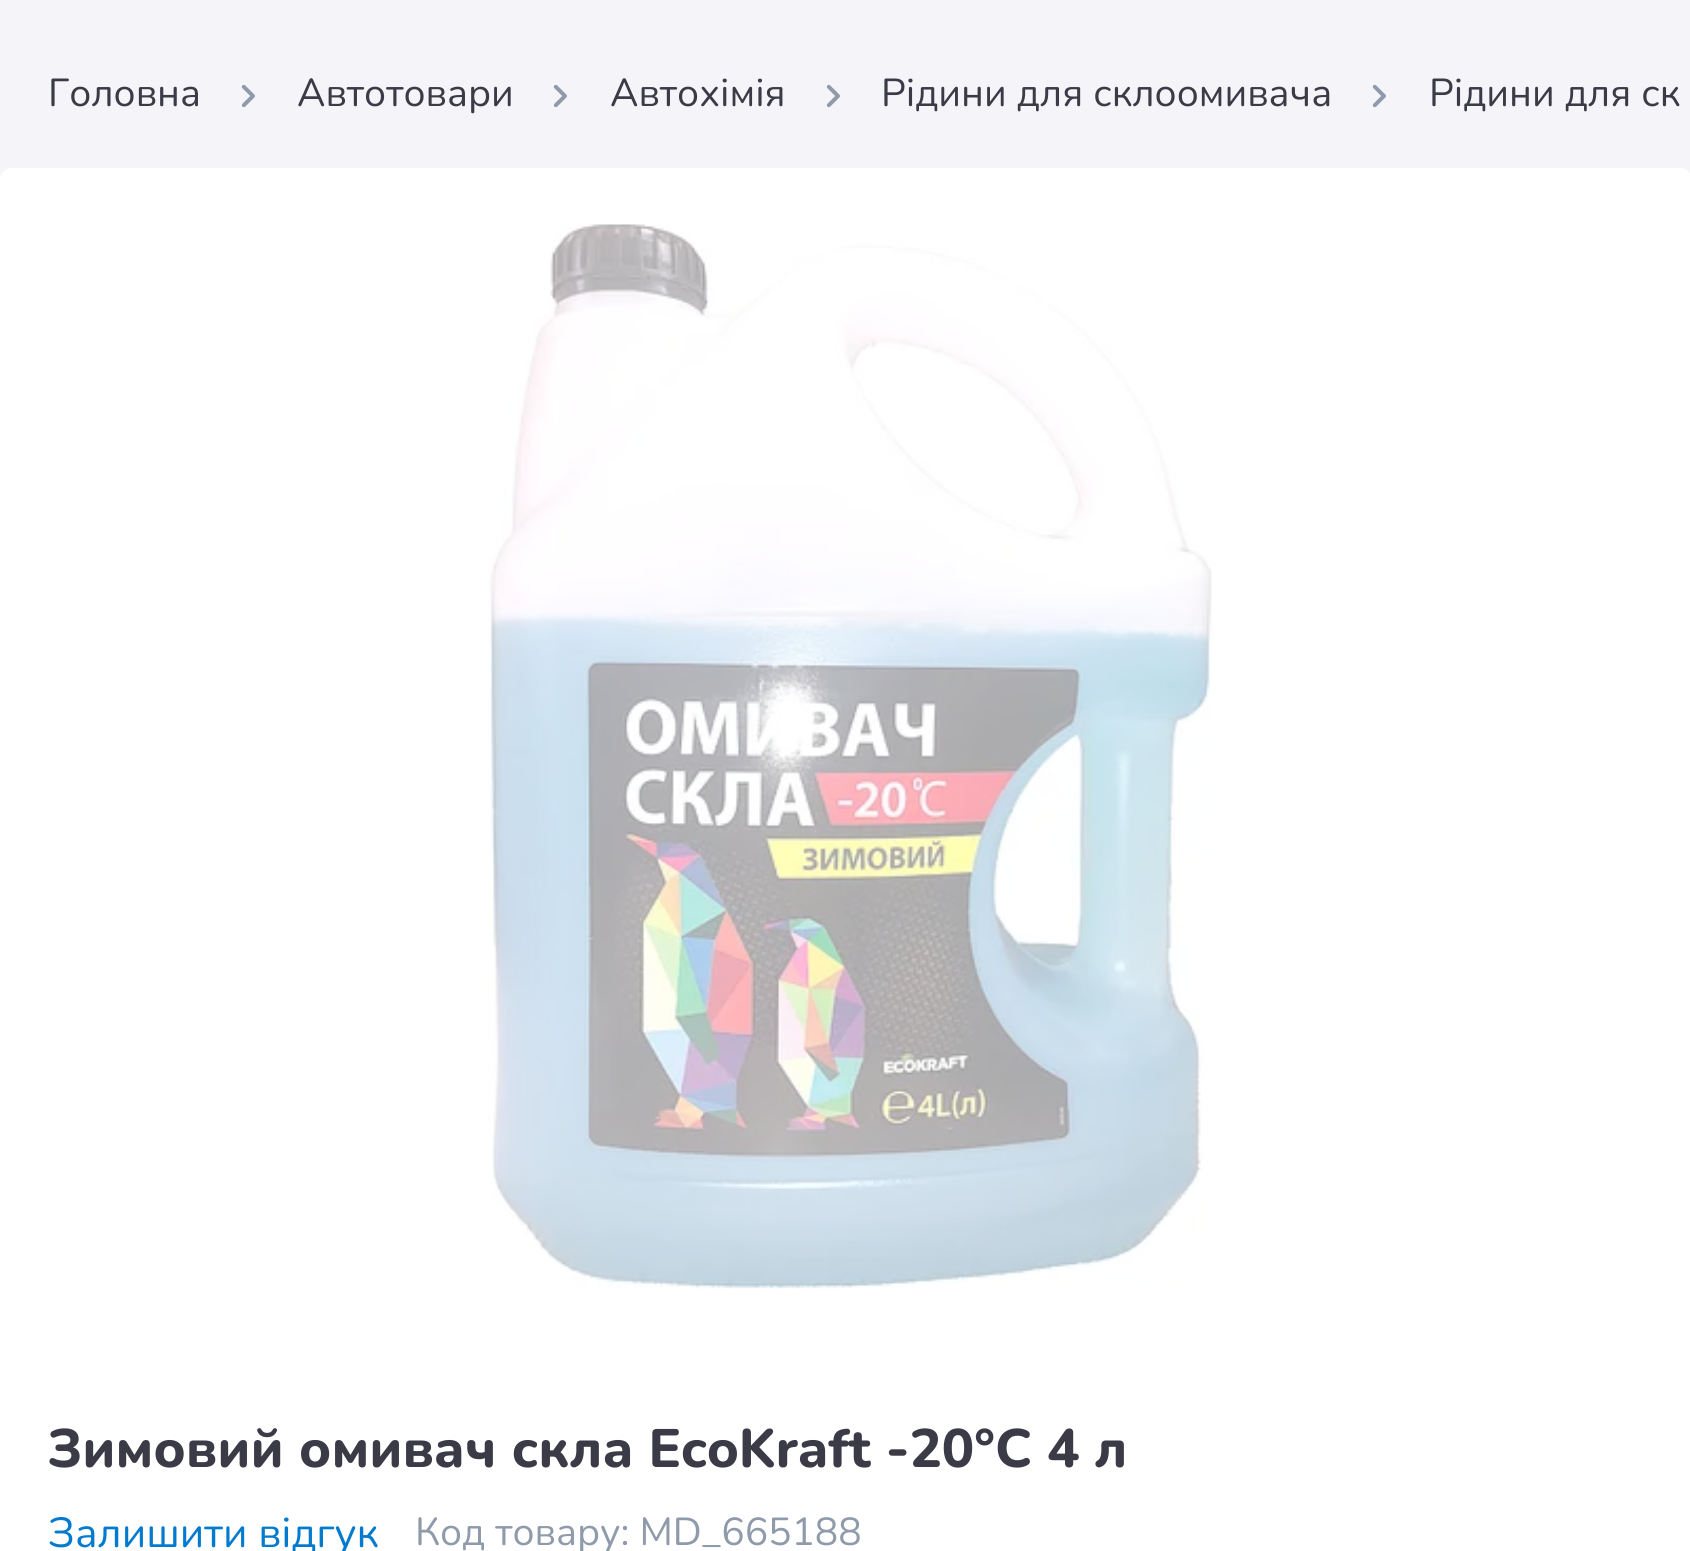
import math
import cairo

surface = cairo.ImageSurface(cairo.FORMAT_RGB24, 1690, 1551)
cr = cairo.Context(surface)
options = cairo.FontOptions()
options.set_hint_metrics(cairo.HINT_METRICS_OFF)
options.set_hint_style(cairo.HINT_STYLE_NONE)
cr.set_font_options(options)
cr.set_miter_limit(4)


def rgb(code):
    cr.set_source_rgb(*(v / 255 for v in bytes.fromhex(code[-6:])))


def rrect(x, y, w, h, r):
    cr.new_sub_path()
    for i, (u, v) in enumerate([(x + w - r, y + h - r), (x + r, y + h - r), (x + r, y + r), (x + w - r, y + r)]):
        cr.arc(u, v, r, i * math.pi / 2, (i + 1) * math.pi / 2)
    cr.close_path()


def image(path, x, y, w, h):
    cr.save()
    cr.set_source_surface(cairo.ImageSurface.create_from_png(path), x, y)
    cr.rectangle(x, y, w, h)
    cr.fill()
    cr.restore()


rgb("#f5f4f9")
cr.paint()
image("img/1.png", 241, 84, 14, 24)
image("img/1.png", 553, 84, 14, 24)
image("img/1.png", 826, 84, 14, 24)
image("img/1.png", 1372, 84, 14, 24)
rgb("#ffffff")
rrect(0, 168, 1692, 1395, 12)
cr.fill()
image("img/2.png", 488, 224, 724, 1065)
cr.select_font_face("Nunito")
cr.set_font_size(39)
rgb("#3b3b48")
for x, y, s in [
    (48, 106, "Головна"),
    (297, 106, "Автотовари"),
    (610, 106, "Автохімія"),
    (881, 106, "Рідини для склоомивача"),
    (1429, 106, "Рідини для ск"),
]:
    cr.move_to(x, y)
    cr.show_text(s)
cr.select_font_face("Nunito ExtraBold")
cr.set_font_size(54)
cr.move_to(48, 1467)
cr.show_text("Зимовий омивач скла EcoKraft -20°С 4 л")
cr.select_font_face("Nunito")
cr.set_font_size(42)
rgb("#027bce")
cr.move_to(48, 1547)
cr.show_text("Залишити відгук")
cr.set_font_size(39)
rgb("#8f9bab")
cr.move_to(415, 1545)
cr.show_text("Код товару: MD_665188")
surface.write_to_png("page.png")
